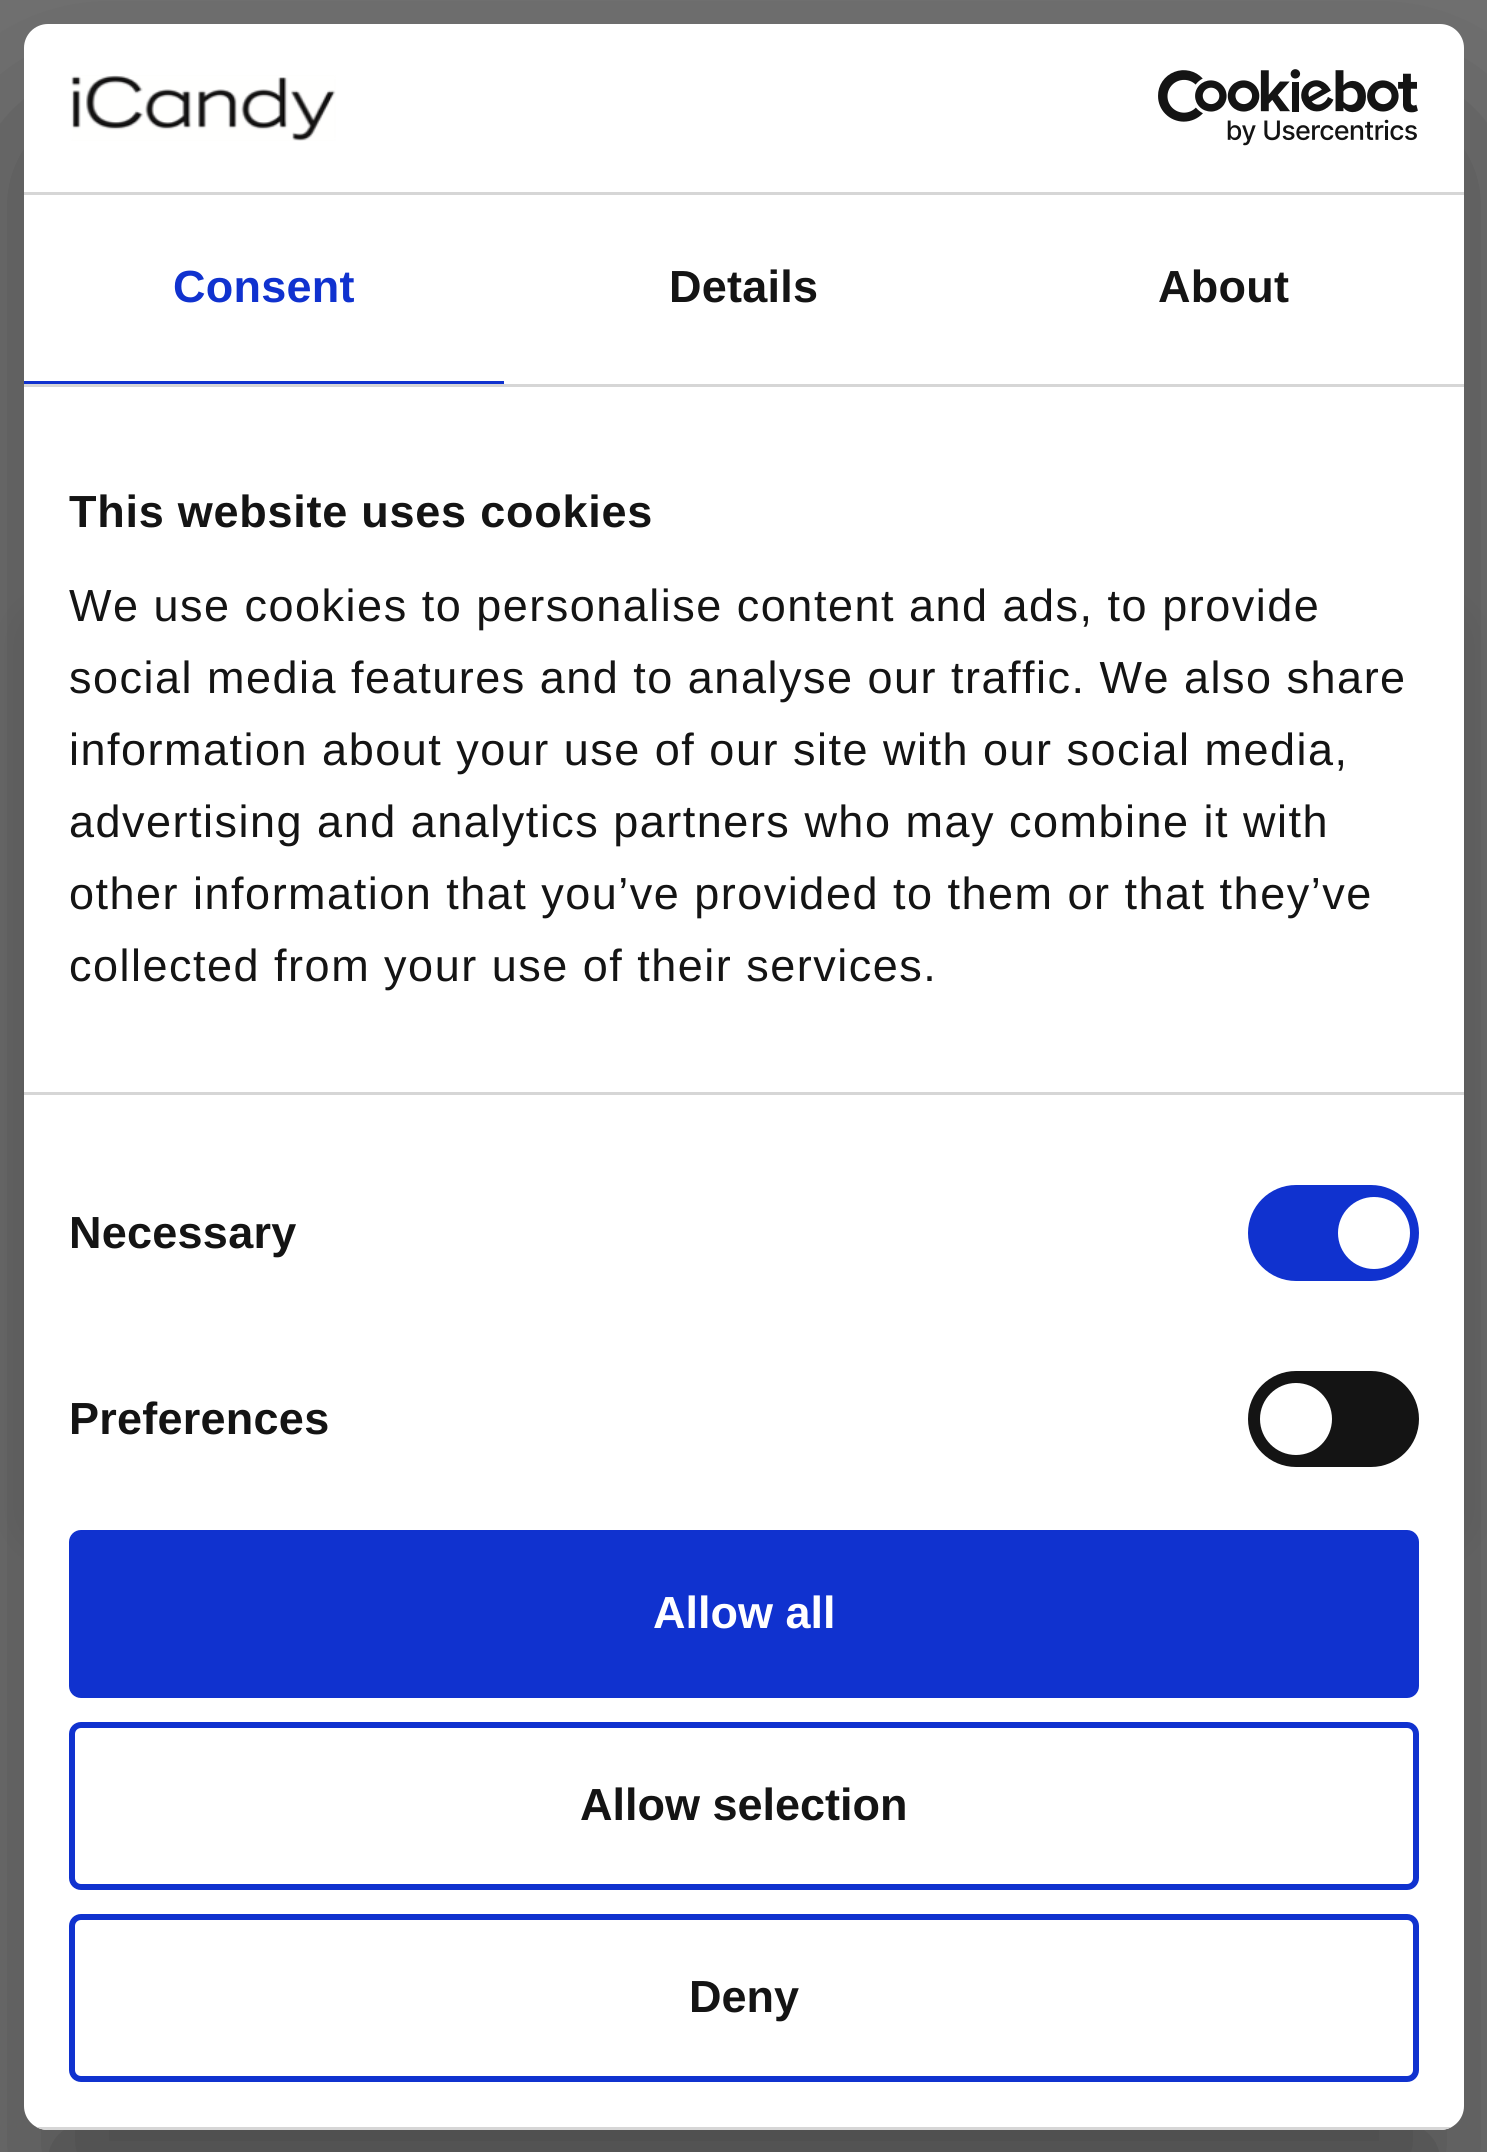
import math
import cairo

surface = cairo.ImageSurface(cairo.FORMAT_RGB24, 1487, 2152)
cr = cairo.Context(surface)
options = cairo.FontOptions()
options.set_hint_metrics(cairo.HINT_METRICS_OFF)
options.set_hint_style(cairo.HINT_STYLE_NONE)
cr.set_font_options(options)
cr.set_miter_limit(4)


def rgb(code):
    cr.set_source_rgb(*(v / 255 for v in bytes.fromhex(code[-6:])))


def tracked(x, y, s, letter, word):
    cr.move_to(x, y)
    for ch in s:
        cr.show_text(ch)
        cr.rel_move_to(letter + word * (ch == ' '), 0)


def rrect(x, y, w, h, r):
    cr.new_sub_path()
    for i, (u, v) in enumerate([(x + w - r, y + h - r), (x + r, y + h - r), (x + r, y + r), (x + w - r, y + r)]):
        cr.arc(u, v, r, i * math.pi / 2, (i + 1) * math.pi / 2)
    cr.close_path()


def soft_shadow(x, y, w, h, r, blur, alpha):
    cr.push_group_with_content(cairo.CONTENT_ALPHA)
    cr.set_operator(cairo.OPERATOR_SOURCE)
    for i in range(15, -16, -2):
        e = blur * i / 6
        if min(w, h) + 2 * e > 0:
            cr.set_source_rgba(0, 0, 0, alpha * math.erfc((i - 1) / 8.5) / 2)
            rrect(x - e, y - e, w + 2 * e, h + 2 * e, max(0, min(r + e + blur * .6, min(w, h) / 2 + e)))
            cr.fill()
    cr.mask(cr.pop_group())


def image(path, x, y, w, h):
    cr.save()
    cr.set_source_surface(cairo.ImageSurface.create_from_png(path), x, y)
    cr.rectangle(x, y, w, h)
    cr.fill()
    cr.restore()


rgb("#727272")
cr.paint()
rgb("#6b6b6b")
rrect(48, 2124, 1392, 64, 36)
cr.fill()
rgb("#000000")
soft_shadow(24, 120, 1440, 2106, 24, 102, 0.3)
soft_shadow(36, 624, 1416, 906, 8, 27, 0.15)
rgb("#ffffff")
rrect(24, 24, 1440, 2106, 24)
cr.fill()
rgb("#d6d6d6")
cr.rectangle(24, 192, 1440, 3)
cr.fill()
image("img/1.png", 71, 75, 265, 66)
image("img/2.png", 1158, 69, 260, 77)
for x, y, w, h, color in [
    (24, 384, 1440, 3, "#d6d6d6"),
    (24, 381, 480, 3, "#1032cf"),
    (24, 1092, 1440, 3, "#d6d6d6"),
]:
    rgb(color)
    cr.rectangle(x, y, w, h)
    cr.fill()
rgb("#1032cf")
rrect(1248, 1185, 171, 96, 48)
cr.fill()
rgb("#ffffff")
cr.arc(1374, 1233, 36, 0, 2 * math.pi)
cr.fill()
rgb("#141414")
rrect(1248, 1371, 171, 96, 48)
cr.fill()
rgb("#ffffff")
cr.arc(1296, 1419, 36, 0, 2 * math.pi)
cr.fill()
cr.save()
rrect(24, 24, 1440, 2106, 24)
cr.clip()
rgb("#d6d6d6")
cr.rectangle(36, 2127, 1416, 3)
cr.fill()
cr.restore()
rgb("#1032cf")
rrect(72, 1533, 1344, 162, 9)
cr.fill_preserve()
cr.set_line_width(6)
cr.stroke()
rrect(72, 1725, 1344, 162, 9)
cr.stroke()
rrect(72, 1917, 1344, 162, 9)
cr.stroke()
cr.select_font_face("Liberation Sans", cairo.FONT_SLANT_NORMAL, cairo.FONT_WEIGHT_BOLD)
cr.set_font_size(45)
tracked(173, 302, "Consent", 0.25, 0)
rgb("#141414")
tracked(669, 302, "Details", 0.25, 0)
tracked(1158, 302, "About", 0.25, 0)
tracked(69, 527, "This website uses cookies", 0.75, 0)
cr.select_font_face("Liberation Sans")
for x, y, s in [
    (69, 621, "We use cookies to personalise content and ads, to provide"),
    (69, 693, "social media features and to analyse our traffic. We also share"),
    (69, 765, "information about your use of our site with our social media,"),
    (69, 837, "advertising and analytics partners who may combine it with"),
    (69, 909, "other information that you’ve provided to them or that they’ve"),
    (69, 981, "collected from your use of their services."),
]:
    tracked(x, y, s, 1.5, 0)
cr.select_font_face("Liberation Sans", cairo.FONT_SLANT_NORMAL, cairo.FONT_WEIGHT_BOLD)
tracked(69, 1248, "Necessary", 0.25, 0)
tracked(69, 1434, "Preferences", 0.25, 0)
rgb("#ffffff")
cr.move_to(653, 1628)
cr.show_text("Allow all")
rgb("#141414")
cr.move_to(580, 1820)
cr.show_text("Allow selection")
cr.move_to(689, 2012)
cr.show_text("Deny")
surface.write_to_png("page.png")
